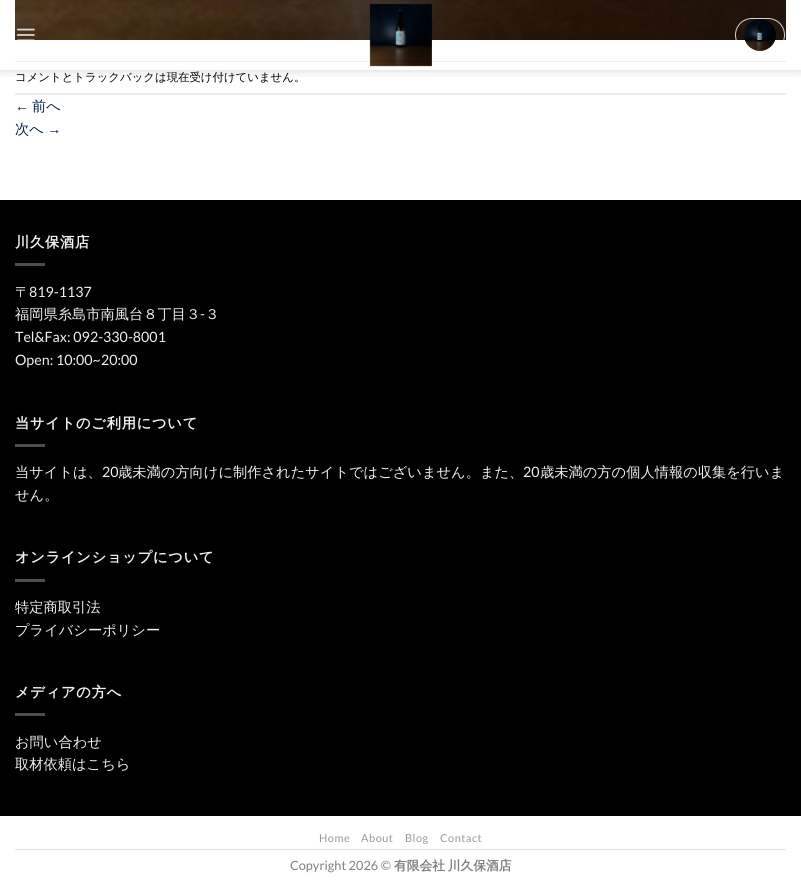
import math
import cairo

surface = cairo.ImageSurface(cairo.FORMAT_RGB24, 801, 891)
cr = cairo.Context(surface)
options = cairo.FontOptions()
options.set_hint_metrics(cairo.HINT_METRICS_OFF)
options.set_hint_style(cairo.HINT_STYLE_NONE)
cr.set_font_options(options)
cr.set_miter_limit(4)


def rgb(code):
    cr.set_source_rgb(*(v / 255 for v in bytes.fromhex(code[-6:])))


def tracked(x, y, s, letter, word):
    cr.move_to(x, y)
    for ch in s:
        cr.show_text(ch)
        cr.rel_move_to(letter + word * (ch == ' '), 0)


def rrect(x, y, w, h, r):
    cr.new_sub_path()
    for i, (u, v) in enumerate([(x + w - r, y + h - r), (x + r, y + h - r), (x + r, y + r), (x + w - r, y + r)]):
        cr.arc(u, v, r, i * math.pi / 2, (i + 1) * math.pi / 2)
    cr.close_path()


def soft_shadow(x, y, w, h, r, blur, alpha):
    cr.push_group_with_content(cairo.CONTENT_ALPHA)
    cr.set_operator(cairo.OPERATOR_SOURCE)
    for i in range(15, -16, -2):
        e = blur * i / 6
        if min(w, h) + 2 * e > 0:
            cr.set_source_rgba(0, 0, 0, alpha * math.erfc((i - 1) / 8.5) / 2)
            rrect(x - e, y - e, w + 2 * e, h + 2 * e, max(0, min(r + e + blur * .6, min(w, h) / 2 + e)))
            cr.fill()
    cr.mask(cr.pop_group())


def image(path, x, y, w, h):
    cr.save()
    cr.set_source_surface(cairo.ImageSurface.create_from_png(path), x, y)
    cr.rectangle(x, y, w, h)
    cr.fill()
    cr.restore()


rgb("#ffffff")
cr.paint()
image("img/4.png", 15, 0, 771, 40)
rgb("#ececec")
cr.rectangle(15, 61, 771, 1)
cr.fill()
cr.save()
cr.rectangle(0, 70, 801, 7)
cr.clip()
rgb("#000000")
soft_shadow(1, 1, 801, 70, 0, 5, 0.15)
cr.restore()
image("img/1.png", 16, 28, 19, 12)
image("img/2.png", 369, 3, 63, 64)
rrect(735.5, 18.5, 49, 33, 16.5)
cr.set_source_rgba(1, 1, 1, 0.8)
cr.set_line_width(1)
cr.stroke()
image("img/3.png", 744, 19, 32, 32)
for x, y, w, h, color in [
    (15, 93, 771, 2, "#ececec"),
    (0, 200, 801, 616, "#000000"),
    (15, 263, 30, 3, "#4d4d4d"),
    (15, 444, 30, 3, "#4d4d4d"),
    (15, 579, 30, 3, "#4d4d4d"),
    (15, 713, 30, 3, "#4d4d4d"),
    (15, 849, 771, 1, "#e4e4e4"),
]:
    rgb(color)
    cr.rectangle(x, y, w, h)
    cr.fill()
cr.select_font_face("WenQuanYi Zen Hei Medium")
cr.set_font_size(11.4)
rgb("#000000")
cr.move_to(15, 81)
cr.show_text("コメントとトラックバックは現在受け付けていません。")
cr.select_font_face("Liberation Sans")
cr.set_font_size(14.25)
rgb("#01204e")
cr.move_to(15, 111)
cr.show_text("←")
cr.select_font_face("WenQuanYi Zen Hei Medium")
cr.move_to(32, 111)
cr.show_text("前へ")
cr.move_to(15, 134)
cr.show_text("次へ")
cr.select_font_face("Liberation Sans")
cr.move_to(47, 134)
cr.show_text("→")
cr.select_font_face("WenQuanYi Zen Hei", cairo.FONT_SLANT_NORMAL, cairo.FONT_WEIGHT_BOLD)
rgb("#f1f1f1")
tracked(15, 247, "川久保酒店", 0.75, 0)
cr.select_font_face("WenQuanYi Zen Hei Medium")
cr.move_to(15, 297)
cr.show_text("〒")
cr.select_font_face("Lato")
cr.move_to(29, 297)
cr.show_text("819-1137")
cr.select_font_face("WenQuanYi Zen Hei Medium")
cr.move_to(15, 319)
cr.show_text("福岡県糸島市南風台８丁目３")
cr.select_font_face("Lato")
cr.move_to(200, 319)
cr.show_text("-")
cr.select_font_face("WenQuanYi Zen Hei Medium")
cr.move_to(205, 319)
cr.show_text("３")
cr.select_font_face("Lato")
cr.move_to(15, 342)
cr.show_text("Tel&Fax: 092-330-8001")
cr.move_to(15, 365)
cr.show_text("Open: 10:00~20:00")
cr.select_font_face("WenQuanYi Zen Hei", cairo.FONT_SLANT_NORMAL, cairo.FONT_WEIGHT_BOLD)
tracked(15, 428, "当サイトのご利用について", 0.75, 0)
cr.select_font_face("WenQuanYi Zen Hei Medium")
cr.move_to(15, 477)
cr.show_text("当サイトは、")
cr.select_font_face("Lato")
cr.move_to(102, 477)
cr.show_text("20")
cr.select_font_face("WenQuanYi Zen Hei Medium")
cr.move_to(118, 477)
cr.show_text("歳未満の方向けに制作されたサイトではございません。また、")
cr.select_font_face("Lato")
cr.move_to(523, 477)
cr.show_text("20")
cr.select_font_face("WenQuanYi Zen Hei Medium")
cr.move_to(540, 477)
cr.show_text("歳未満の方の個人情報の収集を行いま")
cr.move_to(15, 500)
cr.show_text("せん。")
cr.select_font_face("WenQuanYi Zen Hei", cairo.FONT_SLANT_NORMAL, cairo.FONT_WEIGHT_BOLD)
tracked(15, 562, "オンラインショップについて", 0.75, 0)
cr.select_font_face("WenQuanYi Zen Hei Medium")
cr.move_to(15, 612)
cr.show_text("特定商取引法")
cr.move_to(15, 635)
cr.show_text("プライバシーポリシー")
cr.select_font_face("WenQuanYi Zen Hei", cairo.FONT_SLANT_NORMAL, cairo.FONT_WEIGHT_BOLD)
tracked(15, 697, "メディアの方へ", 0.75, 0)
cr.select_font_face("WenQuanYi Zen Hei Medium")
cr.move_to(15, 747)
cr.show_text("お問い合わせ")
cr.move_to(15, 769)
cr.show_text("取材依頼はこちら")
cr.select_font_face("Lato")
cr.set_font_size(11)
rgb("#999999")
for x, y, s in [
    (319, 842, "Home"),
    (361, 842, "About"),
    (405, 842, "Blog"),
    (440, 842, "Contact"),
]:
    tracked(x, y, s, 0.5, 0)
cr.set_font_size(12.75)
rgb("#808080")
cr.move_to(290, 870)
cr.show_text("Copyright 2026 ©")
cr.select_font_face("WenQuanYi Zen Hei", cairo.FONT_SLANT_NORMAL, cairo.FONT_WEIGHT_BOLD)
tracked(394, 870, "有限会社 川久保酒店", 0, -1)
surface.write_to_png("page.png")
